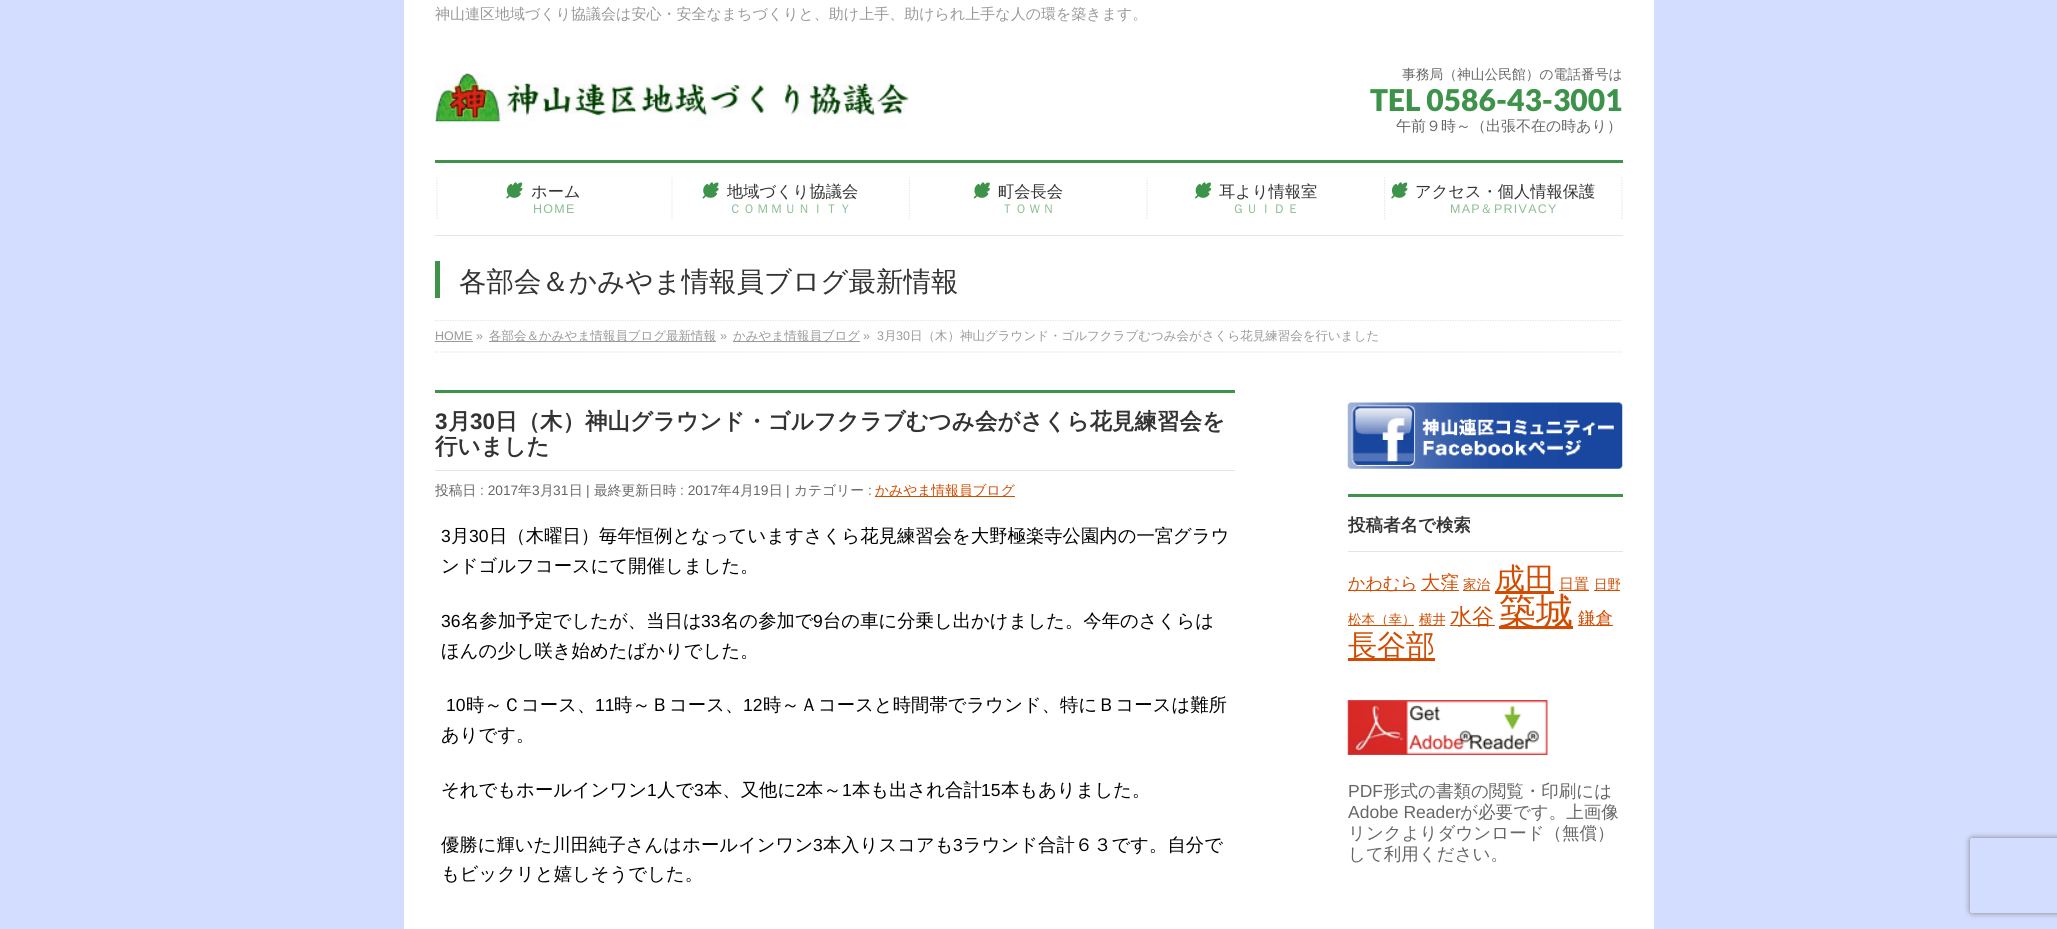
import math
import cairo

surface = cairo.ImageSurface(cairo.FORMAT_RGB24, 2057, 929)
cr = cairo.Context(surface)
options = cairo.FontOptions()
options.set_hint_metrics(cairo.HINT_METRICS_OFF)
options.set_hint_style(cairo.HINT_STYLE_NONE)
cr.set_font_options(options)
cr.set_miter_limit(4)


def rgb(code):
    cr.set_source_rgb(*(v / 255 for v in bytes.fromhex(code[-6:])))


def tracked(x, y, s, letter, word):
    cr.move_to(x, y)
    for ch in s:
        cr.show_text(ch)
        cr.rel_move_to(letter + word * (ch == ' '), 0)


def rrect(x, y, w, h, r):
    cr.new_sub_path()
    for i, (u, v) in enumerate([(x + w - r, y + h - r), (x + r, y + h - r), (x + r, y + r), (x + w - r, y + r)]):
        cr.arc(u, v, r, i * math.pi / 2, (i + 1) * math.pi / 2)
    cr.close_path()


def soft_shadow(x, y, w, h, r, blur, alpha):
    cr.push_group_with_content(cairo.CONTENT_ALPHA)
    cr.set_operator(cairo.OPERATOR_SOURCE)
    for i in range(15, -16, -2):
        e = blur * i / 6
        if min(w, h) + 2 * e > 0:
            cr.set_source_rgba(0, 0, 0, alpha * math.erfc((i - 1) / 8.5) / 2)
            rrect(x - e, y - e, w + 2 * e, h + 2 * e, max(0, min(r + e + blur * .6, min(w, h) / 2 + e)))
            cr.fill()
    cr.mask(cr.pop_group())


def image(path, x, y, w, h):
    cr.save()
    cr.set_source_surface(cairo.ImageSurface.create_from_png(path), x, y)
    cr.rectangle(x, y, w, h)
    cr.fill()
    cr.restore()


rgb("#d3ddff")
cr.paint()
rgb("#ffffff")
cr.rectangle(404, 0, 1250, 236)
cr.fill()
image("img/1.png", 435, 73, 475, 49)
rgb("#3e934a")
cr.rectangle(435, 160, 1188, 3)
cr.fill()
rgb("#e5e5e5")
cr.rectangle(435, 235, 1188, 1)
cr.fill()
cr.new_path()
cr.move_to(437, 177.5)
cr.line_to(437, 220)
cr.set_line_width(1.2)
cr.set_dash([1.25, 1.25])
cr.stroke()
image("img/2.png", 506, 182, 17, 17)
cr.new_path()
cr.move_to(672, 177.5)
cr.line_to(672, 220)
cr.stroke()
image("img/3.png", 702, 182, 17, 17)
cr.new_path()
cr.move_to(909.5, 177.5)
cr.line_to(909.5, 220)
cr.stroke()
image("img/4.png", 973, 182, 17, 17)
cr.new_path()
cr.move_to(1147, 177.5)
cr.line_to(1147, 220)
cr.stroke()
image("img/5.png", 1195, 182, 17, 17)
cr.new_path()
cr.move_to(1384.5, 177.5)
cr.line_to(1384.5, 220)
cr.stroke()
image("img/2.png", 1391, 182, 17, 17)
cr.new_path()
cr.move_to(1622, 177.5)
cr.line_to(1622, 220)
cr.stroke()
for x, y, w, h, color in [
    (404, 236, 1250, 84, "#ffffff"),
    (435, 261, 5, 37, "#3e934a"),
    (404, 320, 1250, 609, "#ffffff"),
]:
    rgb(color)
    cr.rectangle(x, y, w, h)
    cr.fill()
cr.save()
cr.rectangle(404, 320, 1250, 33)
cr.clip()
cr.new_path()
cr.move_to(435, 320.5)
cr.line_to(1622.5, 320.5)
rgb("#e5e5e5")
cr.stroke()
cr.restore()
cr.new_path()
cr.move_to(435, 352)
cr.line_to(1622.5, 352)
rgb("#e5e5e5")
cr.stroke()
for x, y, w, h, color in [
    (435, 341, 38, 1, "#999999"),
    (489, 341, 227, 1, "#999999"),
    (733, 341, 127, 1, "#999999"),
    (435, 390, 800, 3, "#3e934a"),
    (435, 470, 800, 1, "#e5e5e5"),
    (875, 496, 140, 1, "#d14c00"),
]:
    rgb(color)
    cr.rectangle(x, y, w, h)
    cr.fill()
image("img/6.png", 1347, 402, 276, 67)
for x, y, w, h, color in [
    (1348, 494, 275, 3, "#3e934a"),
    (1348, 551, 275, 1, "#e5e5e5"),
    (1348, 590, 68, 1, "#d14c00"),
    (1421, 590, 38, 1, "#d14c00"),
    (1463, 590, 27, 1, "#d14c00"),
    (1495, 591, 59, 3, "#d14c00"),
    (1559, 590, 30, 1, "#d14c00"),
    (1594, 590, 26, 1, "#d14c00"),
    (1348, 625, 66, 1, "#d14c00"),
    (1419, 625, 26, 1, "#d14c00"),
    (1450, 625, 45, 1, "#d14c00"),
    (1499, 626, 74, 3, "#d14c00"),
    (1578, 625, 35, 1, "#d14c00"),
    (1348, 658, 87, 3, "#d14c00"),
]:
    rgb(color)
    cr.rectangle(x, y, w, h)
    cr.fill()
image("img/7.png", 1347, 700, 201, 55)
cr.save()
cr.set_fill_rule(cairo.FILL_RULE_EVEN_ODD)
cr.new_path()
cr.move_to(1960, 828)
cr.line_to(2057, 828)
cr.line_to(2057, 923)
cr.line_to(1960, 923)
cr.close_path()
cr.move_to(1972.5, 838)
cr.line_to(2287.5, 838)
cr.curve_to(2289, 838, 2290, 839, 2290, 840.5)
cr.line_to(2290, 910.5)
cr.curve_to(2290, 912, 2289, 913, 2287.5, 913)
cr.line_to(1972.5, 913)
cr.curve_to(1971, 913, 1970, 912, 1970, 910.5)
cr.line_to(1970, 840.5)
cr.curve_to(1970, 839, 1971, 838, 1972.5, 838)
cr.close_path()
cr.clip()
rgb("#808080")
soft_shadow(1970, 838, 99, 75, 2.5, 3, 1)
cr.restore()
cr.select_font_face("WenQuanYi Zen Hei Medium")
cr.set_font_size(15)
rgb("#999999")
cr.move_to(435, 19)
cr.show_text("神山連区地域づくり協議会は安心・安全なまちづくりと、助け上手、助けられ上手な人の環を築きます。")
cr.set_font_size(13.75)
rgb("#666666")
cr.move_to(1402, 79)
cr.show_text("事務局（神山公民館）の電話番号は")
cr.select_font_face("Lato Black")
cr.set_font_size(30)
rgb("#3e934a")
cr.move_to(1370, 111)
cr.show_text("TEL 0586-43-3001")
cr.select_font_face("WenQuanYi Zen Hei Medium")
cr.set_font_size(15)
rgb("#666666")
cr.move_to(1396, 131)
cr.show_text("午前９時～（出張不在の時あり）")
cr.set_font_size(16.25)
rgb("#333333")
cr.move_to(531, 197)
cr.show_text("ホーム")
cr.select_font_face("Liberation Sans")
cr.set_font_size(12.5)
rgb("#8bbe92")
tracked(533, 213, "HOME", 1.25, 0)
cr.select_font_face("WenQuanYi Zen Hei Medium")
cr.set_font_size(16.25)
rgb("#333333")
cr.move_to(727, 197)
cr.show_text("地域づくり協議会")
cr.set_font_size(12.5)
rgb("#8bbe92")
tracked(729, 213, "ＣＯＭＭＵＮＩＴＹ", 1.25, 0)
cr.set_font_size(16.25)
rgb("#333333")
cr.move_to(998, 197)
cr.show_text("町会長会")
cr.set_font_size(12.5)
rgb("#8bbe92")
tracked(1001, 213, "ＴＯＷＮ", 1.25, 0)
cr.set_font_size(16.25)
rgb("#333333")
cr.move_to(1219, 197)
cr.show_text("耳より情報室")
cr.set_font_size(12.5)
rgb("#8bbe92")
tracked(1232, 213, "ＧＵＩＤＥ", 1.25, 0)
cr.set_font_size(16.25)
rgb("#333333")
cr.move_to(1415, 197)
cr.show_text("アクセス・個人情報保護")
cr.select_font_face("Liberation Sans")
cr.set_font_size(12.5)
rgb("#8bbe92")
tracked(1450, 213, "MAP", 1.25, 0)
cr.select_font_face("WenQuanYi Zen Hei Medium")
tracked(1480, 213, "＆", 1.25, 0)
cr.select_font_face("Liberation Sans")
tracked(1494, 213, "PRIVACY", 1.25, 0)
cr.select_font_face("WenQuanYi Zen Hei Medium")
cr.set_font_size(27.5)
rgb("#333333")
cr.move_to(459, 291)
cr.show_text("各部会＆かみやま情報員ブログ最新情報")
cr.select_font_face("Liberation Sans")
cr.set_font_size(12.5)
rgb("#999999")
cr.move_to(435, 340)
cr.show_text("HOME »")
cr.select_font_face("WenQuanYi Zen Hei Medium")
cr.move_to(489, 340)
cr.show_text("各部会＆かみやま情報員ブログ最新情報")
cr.select_font_face("Liberation Sans")
cr.move_to(720, 340)
cr.show_text("»")
cr.select_font_face("WenQuanYi Zen Hei Medium")
cr.move_to(733, 340)
cr.show_text("かみやま情報員ブログ")
cr.select_font_face("Liberation Sans")
cr.move_to(863, 340)
cr.show_text("»")
cr.move_to(877, 340)
cr.show_text("3")
cr.select_font_face("WenQuanYi Zen Hei Medium")
cr.move_to(884, 340)
cr.show_text("月")
cr.select_font_face("Liberation Sans")
cr.move_to(896, 340)
cr.show_text("30")
cr.select_font_face("WenQuanYi Zen Hei Medium")
cr.move_to(910, 340)
cr.show_text("日（木）神山グラウンド・ゴルフクラブむつみ会がさくら花見練習会を行いました")
cr.select_font_face("Liberation Sans", cairo.FONT_SLANT_NORMAL, cairo.FONT_WEIGHT_BOLD)
cr.set_font_size(22.5)
rgb("#333333")
cr.move_to(435, 429)
cr.show_text("3")
cr.select_font_face("WenQuanYi Zen Hei", cairo.FONT_SLANT_NORMAL, cairo.FONT_WEIGHT_BOLD)
cr.move_to(448, 429)
cr.show_text("月")
cr.select_font_face("Liberation Sans", cairo.FONT_SLANT_NORMAL, cairo.FONT_WEIGHT_BOLD)
cr.move_to(470, 429)
cr.show_text("30")
cr.select_font_face("WenQuanYi Zen Hei", cairo.FONT_SLANT_NORMAL, cairo.FONT_WEIGHT_BOLD)
cr.move_to(495, 429)
cr.show_text("日（木）神山グラウンド・ゴルフクラブむつみ会がさくら花見練習会を")
cr.move_to(435, 454)
cr.show_text("行いました")
cr.select_font_face("WenQuanYi Zen Hei Medium")
cr.set_font_size(13.75)
rgb("#666666")
cr.move_to(435, 495)
cr.show_text("投稿日")
cr.select_font_face("Liberation Sans")
cr.move_to(480, 495)
cr.show_text(": 2017")
cr.select_font_face("WenQuanYi Zen Hei Medium")
cr.move_to(518, 495)
cr.show_text("年")
cr.select_font_face("Liberation Sans")
cr.move_to(532, 495)
cr.show_text("3")
cr.select_font_face("WenQuanYi Zen Hei Medium")
cr.move_to(540, 495)
cr.show_text("月")
cr.select_font_face("Liberation Sans")
cr.move_to(553, 495)
cr.show_text("31")
cr.select_font_face("WenQuanYi Zen Hei Medium")
cr.move_to(569, 495)
cr.show_text("日")
cr.select_font_face("Liberation Sans")
cr.move_to(586, 495)
cr.show_text("|")
cr.select_font_face("WenQuanYi Zen Hei Medium")
cr.move_to(594, 495)
cr.show_text("最終更新日時")
cr.select_font_face("Liberation Sans")
cr.move_to(680, 495)
cr.show_text(": 2017")
cr.select_font_face("WenQuanYi Zen Hei Medium")
cr.move_to(718, 495)
cr.show_text("年")
cr.select_font_face("Liberation Sans")
cr.move_to(732, 495)
cr.show_text("4")
cr.select_font_face("WenQuanYi Zen Hei Medium")
cr.move_to(740, 495)
cr.show_text("月")
cr.select_font_face("Liberation Sans")
cr.move_to(753, 495)
cr.show_text("19")
cr.select_font_face("WenQuanYi Zen Hei Medium")
cr.move_to(769, 495)
cr.show_text("日")
cr.select_font_face("Liberation Sans")
cr.move_to(786, 495)
cr.show_text("|")
cr.select_font_face("WenQuanYi Zen Hei Medium")
cr.move_to(794, 495)
cr.show_text("カテゴリー")
cr.select_font_face("Liberation Sans")
cr.move_to(868, 495)
cr.show_text(":")
cr.select_font_face("WenQuanYi Zen Hei Medium")
rgb("#d14c00")
cr.move_to(875, 495)
cr.show_text("かみやま情報員ブログ")
cr.select_font_face("Liberation Sans")
cr.set_font_size(17.5)
rgb("#000000")
cr.move_to(441, 542)
cr.show_text("3")
cr.select_font_face("WenQuanYi Zen Hei Medium")
cr.set_font_size(18.35)
cr.move_to(451, 542)
cr.show_text("月")
cr.select_font_face("Liberation Sans")
cr.set_font_size(17.5)
cr.move_to(469, 542)
cr.show_text("30")
cr.select_font_face("WenQuanYi Zen Hei Medium")
cr.set_font_size(18.35)
cr.move_to(489, 542)
cr.show_text("日（木曜日）毎年恒例となっていますさくら花見練習会を大野極楽寺公園内の一宮グラウ")
cr.move_to(441, 572)
cr.show_text("ンドゴルフコースにて開催しました。")
cr.select_font_face("Liberation Sans")
cr.set_font_size(17.5)
cr.move_to(441, 627)
cr.show_text("36")
cr.select_font_face("WenQuanYi Zen Hei Medium")
cr.set_font_size(18.35)
cr.move_to(461, 627)
cr.show_text("名参加予定でしたが、当日は")
cr.select_font_face("Liberation Sans")
cr.set_font_size(17.5)
cr.move_to(701, 627)
cr.show_text("33")
cr.select_font_face("WenQuanYi Zen Hei Medium")
cr.set_font_size(18.35)
cr.move_to(721, 627)
cr.show_text("名の参加で")
cr.select_font_face("Liberation Sans")
cr.set_font_size(17.5)
cr.move_to(813, 627)
cr.show_text("9")
cr.select_font_face("WenQuanYi Zen Hei Medium")
cr.set_font_size(18.35)
cr.move_to(823, 627)
cr.show_text("台の車に分乗し出かけました。今年のさくらは")
cr.move_to(441, 657)
cr.show_text("ほんの少し咲き始めたばかりでした。")
cr.select_font_face("Liberation Sans")
cr.set_font_size(17.5)
cr.move_to(446, 711)
cr.show_text("10")
cr.select_font_face("WenQuanYi Zen Hei Medium")
cr.set_font_size(18.35)
cr.move_to(466, 711)
cr.show_text("時～Ｃコース、")
cr.select_font_face("Liberation Sans")
cr.set_font_size(17.5)
cr.move_to(595, 711)
cr.show_text("11")
cr.select_font_face("WenQuanYi Zen Hei Medium")
cr.set_font_size(18.35)
cr.move_to(614, 711)
cr.show_text("時～Ｂコース、")
cr.select_font_face("Liberation Sans")
cr.set_font_size(17.5)
cr.move_to(743, 711)
cr.show_text("12")
cr.select_font_face("WenQuanYi Zen Hei Medium")
cr.set_font_size(18.35)
for x, y, s in [
    (763, 711, "時～Ａコースと時間帯でラウンド、特にＢコースは難所"),
    (441, 741, "ありです。"),
    (441, 796, "それでもホールインワン"),
]:
    cr.move_to(x, y)
    cr.show_text(s)
cr.select_font_face("Liberation Sans")
cr.set_font_size(17.5)
cr.move_to(647, 796)
cr.show_text("1")
cr.select_font_face("WenQuanYi Zen Hei Medium")
cr.set_font_size(18.35)
cr.move_to(657, 796)
cr.show_text("人で")
cr.select_font_face("Liberation Sans")
cr.set_font_size(17.5)
cr.move_to(694, 796)
cr.show_text("3")
cr.select_font_face("WenQuanYi Zen Hei Medium")
cr.set_font_size(18.35)
cr.move_to(704, 796)
cr.show_text("本、又他に")
cr.select_font_face("Liberation Sans")
cr.set_font_size(17.5)
cr.move_to(796, 796)
cr.show_text("2")
cr.select_font_face("WenQuanYi Zen Hei Medium")
cr.set_font_size(18.35)
cr.move_to(805, 796)
cr.show_text("本～")
cr.select_font_face("Liberation Sans")
cr.set_font_size(17.5)
cr.move_to(842, 796)
cr.show_text("1")
cr.select_font_face("WenQuanYi Zen Hei Medium")
cr.set_font_size(18.35)
cr.move_to(852, 796)
cr.show_text("本も出され合計")
cr.select_font_face("Liberation Sans")
cr.set_font_size(17.5)
cr.move_to(981, 796)
cr.show_text("15")
cr.select_font_face("WenQuanYi Zen Hei Medium")
cr.set_font_size(18.35)
cr.move_to(1001, 796)
cr.show_text("本もありました。")
cr.move_to(441, 851)
cr.show_text("優勝に輝いた川田純子さんはホールインワン")
cr.select_font_face("Liberation Sans")
cr.set_font_size(17.5)
cr.move_to(813, 851)
cr.show_text("3")
cr.select_font_face("WenQuanYi Zen Hei Medium")
cr.set_font_size(18.35)
cr.move_to(823, 851)
cr.show_text("本入りスコアも")
cr.select_font_face("Liberation Sans")
cr.set_font_size(17.5)
cr.move_to(953, 851)
cr.show_text("3")
cr.select_font_face("WenQuanYi Zen Hei Medium")
cr.set_font_size(18.35)
cr.move_to(963, 851)
cr.show_text("ラウンド合計６３です。自分で")
cr.move_to(441, 880)
cr.show_text("もビックリと嬉しそうでした。")
cr.save()
cr.rectangle(1348, 390, 275, 538)
cr.clip()
cr.select_font_face("WenQuanYi Zen Hei", cairo.FONT_SLANT_NORMAL, cairo.FONT_WEIGHT_BOLD)
cr.set_font_size(17.5)
rgb("#333333")
cr.move_to(1348, 531)
cr.show_text("投稿者名で検索")
cr.restore()
cr.set_font_size(17)
rgb("#d14c00")
cr.move_to(1348, 589)
cr.show_text("かわむら")
cr.set_font_size(19)
cr.move_to(1421, 589)
cr.show_text("大窪")
cr.set_font_size(13.5)
cr.move_to(1463, 589)
cr.show_text("家治")
cr.set_font_size(30)
cr.move_to(1495, 589)
cr.show_text("成田")
cr.set_font_size(15)
cr.move_to(1559, 589)
cr.show_text("日置")
cr.set_font_size(13.5)
for x, y, s in [
    (1594, 589, "日野"),
    (1348, 624, "松本（幸）"),
    (1419, 624, "横井"),
]:
    cr.move_to(x, y)
    cr.show_text(s)
cr.set_font_size(22)
cr.move_to(1450, 624)
cr.show_text("水谷")
cr.set_font_size(37)
cr.move_to(1499, 624)
cr.show_text("築城")
cr.set_font_size(17.5)
cr.move_to(1578, 624)
cr.show_text("鎌倉")
cr.set_font_size(29)
cr.move_to(1348, 655)
cr.show_text("長谷部")
cr.select_font_face("Liberation Sans")
cr.set_font_size(17.5)
rgb("#666666")
cr.move_to(1348, 797)
cr.show_text("PDF")
cr.select_font_face("WenQuanYi Zen Hei Medium")
cr.move_to(1383, 797)
cr.show_text("形式の書類の閲覧・印刷には")
cr.select_font_face("Liberation Sans")
cr.move_to(1348, 818)
cr.show_text("Adobe Reader")
cr.select_font_face("WenQuanYi Zen Hei Medium")
for x, y, s in [
    (1460, 818, "が必要です。上画像"),
    (1348, 839, "リンクよりダウンロード（無償）"),
    (1348, 860, "して利用ください。"),
]:
    cr.move_to(x, y)
    cr.show_text(s)
surface.write_to_png("page.png")
